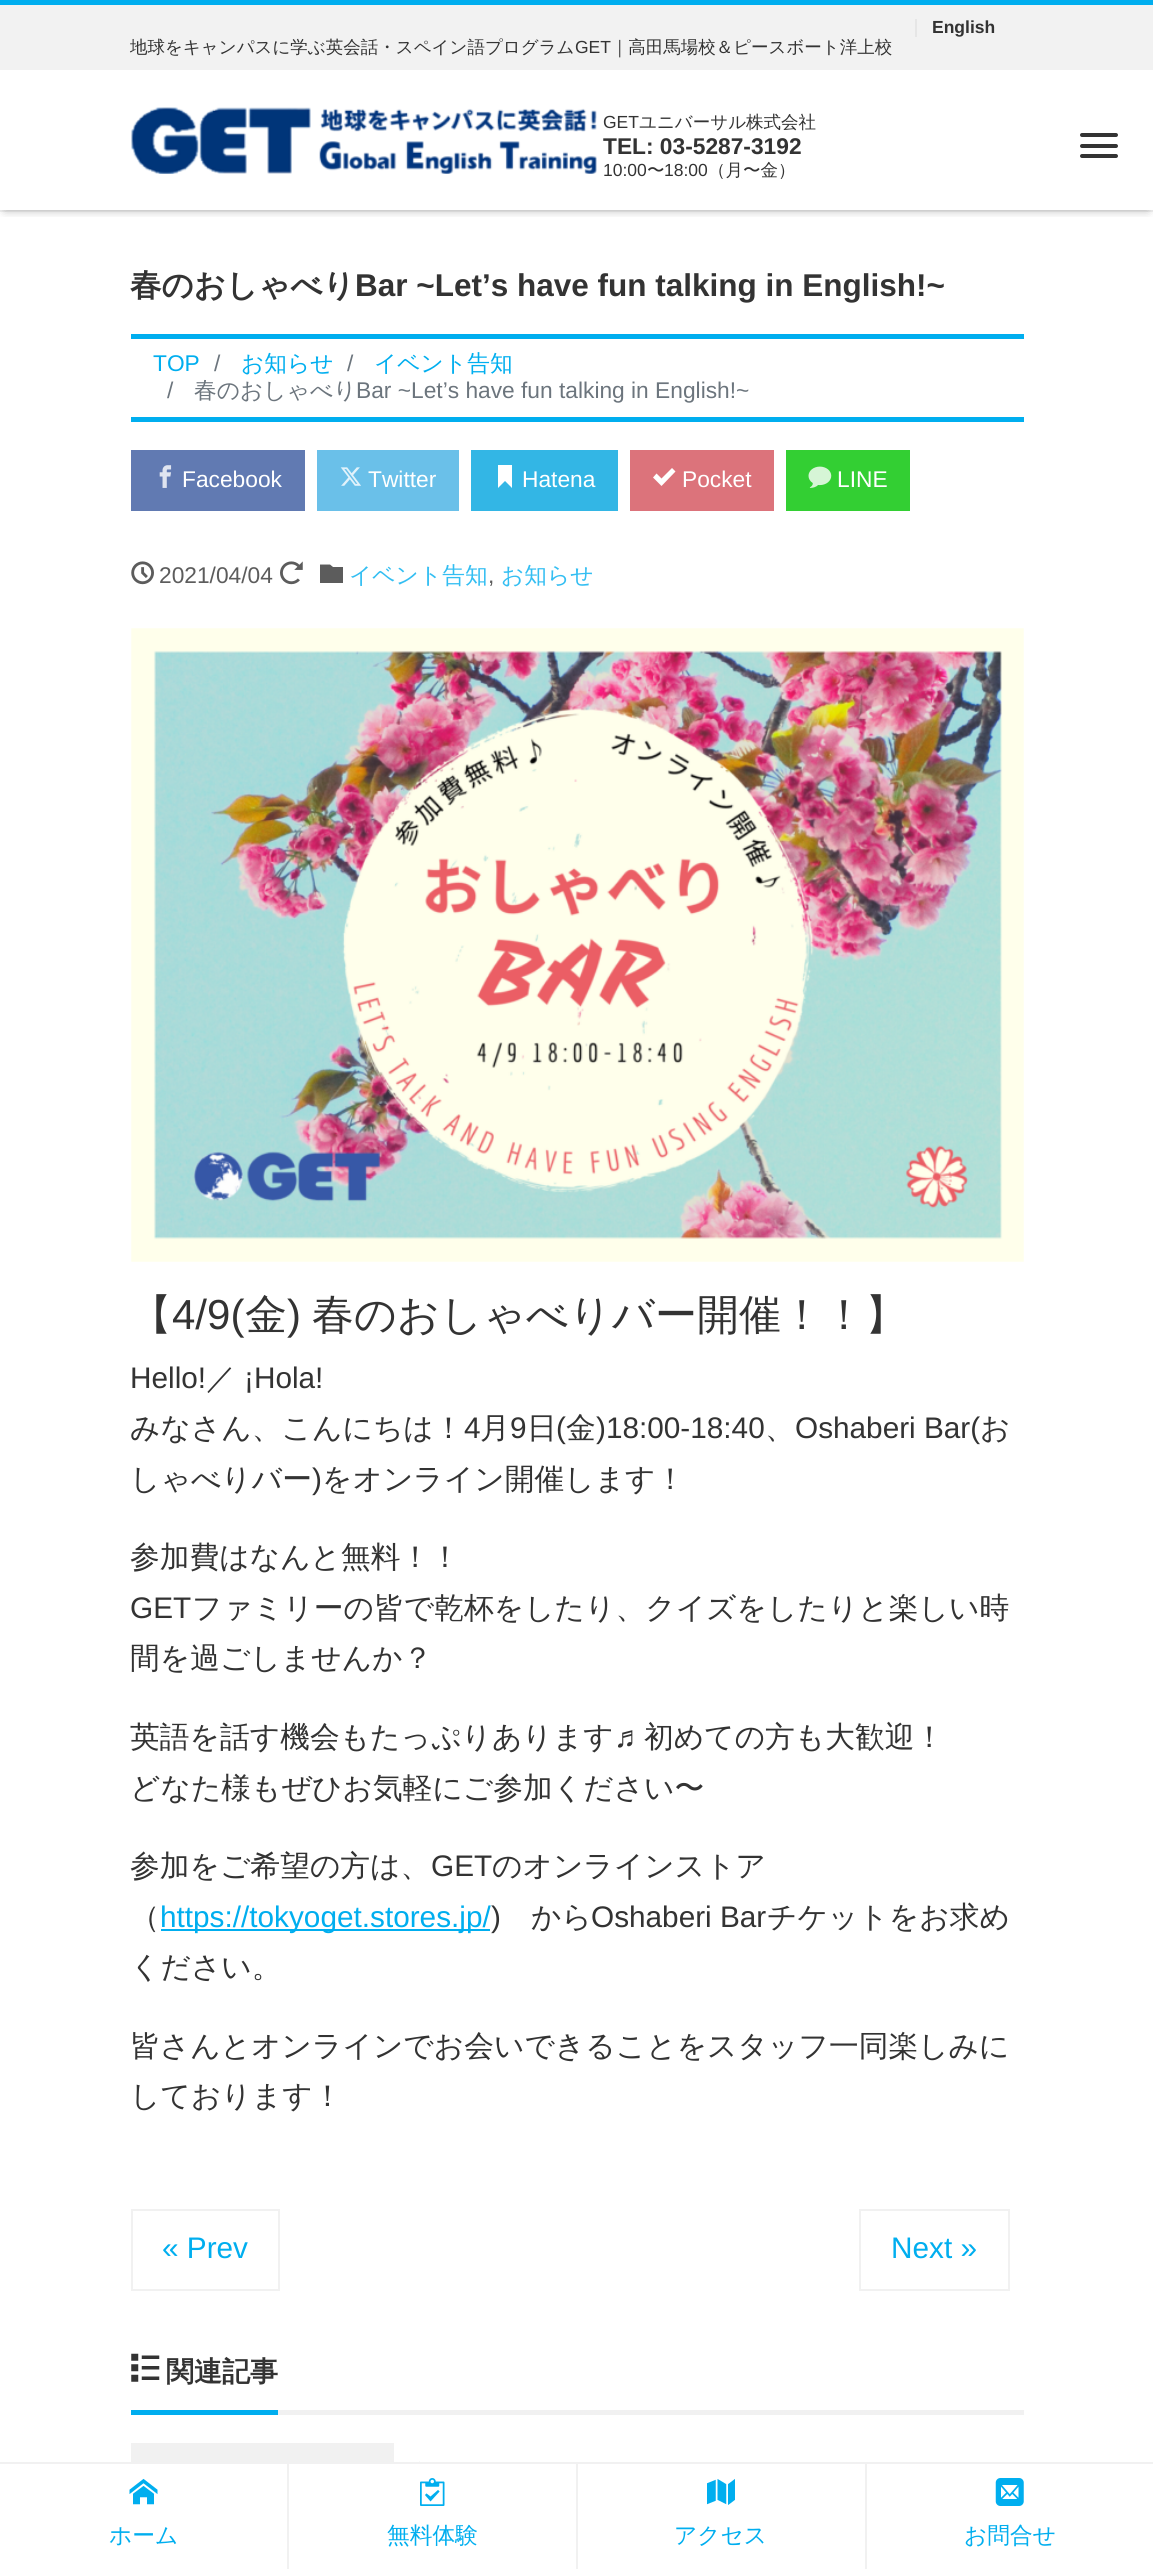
import math
import cairo

surface = cairo.ImageSurface(cairo.FORMAT_RGB24, 1153, 2569)
cr = cairo.Context(surface)
options = cairo.FontOptions()
options.set_hint_metrics(cairo.HINT_METRICS_OFF)
options.set_hint_style(cairo.HINT_STYLE_NONE)
cr.set_font_options(options)
cr.set_miter_limit(4)


def rgb(code):
    cr.set_source_rgb(*(v / 255 for v in bytes.fromhex(code[-6:])))


def rrect(x, y, w, h, r):
    cr.new_sub_path()
    for i, (u, v) in enumerate([(x + w - r, y + h - r), (x + r, y + h - r), (x + r, y + r), (x + w - r, y + r)]):
        cr.arc(u, v, r, i * math.pi / 2, (i + 1) * math.pi / 2)
    cr.close_path()


def soft_shadow(x, y, w, h, r, blur, alpha):
    cr.push_group_with_content(cairo.CONTENT_ALPHA)
    cr.set_operator(cairo.OPERATOR_SOURCE)
    for i in range(15, -16, -2):
        e = blur * i / 6
        if min(w, h) + 2 * e > 0:
            cr.set_source_rgba(0, 0, 0, alpha * math.erfc((i - 1) / 8.5) / 2)
            rrect(x - e, y - e, w + 2 * e, h + 2 * e, max(0, min(r + e + blur * .6, min(w, h) / 2 + e)))
            cr.fill()
    cr.mask(cr.pop_group())


def image(path, x, y, w, h):
    cr.save()
    cr.set_source_surface(cairo.ImageSurface.create_from_png(path), x, y)
    cr.rectangle(x, y, w, h)
    cr.fill()
    cr.restore()


rgb("#ffffff")
cr.paint()
rgb("#f1f1f1")
cr.rectangle(0, 210, 1153, 2)
cr.fill()
cr.save()
cr.rectangle(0, 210, 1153, 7)
cr.clip()
rgb("#000000")
soft_shadow(5, 11, 1143, 199, 0, 5, 0.3)
cr.restore()
for x, y, w, h, color in [
    (0, 0, 1153, 5, "#00aeef"),
    (0, 5, 1153, 65, "#f2f2f2"),
    (915, 19, 2, 18, "#e6e6e6"),
]:
    rgb(color)
    cr.rectangle(x, y, w, h)
    cr.fill()
image("img/1.png", 131, 107, 466, 67)
rgb("#333333")
rrect(1080, 133, 38, 4, 2)
cr.fill()
rrect(1080, 144, 38, 4, 2)
cr.fill()
rrect(1080, 154, 38, 4, 2)
cr.fill()
for x, y, w, h, color in [
    (131, 334, 893, 5, "#00aeef"),
    (131, 417, 893, 5, "#00aeef"),
    (131, 450, 174, 61, "#617ab2"),
]:
    rgb(color)
    cr.rectangle(x, y, w, h)
    cr.fill()
image("img/2.png", 159, 465, 13, 23)
rgb("#6ac0e9")
cr.rectangle(317, 450, 142, 61)
cr.fill()
image("img/3.png", 340, 467, 21, 19)
rgb("#33b6e5")
cr.rectangle(471, 450, 147, 61)
cr.fill()
rgb("#ffffff")
cr.new_path()
cr.move_to(498, 465)
cr.line_to(498, 488)
cr.line_to(505, 481)
cr.line_to(512, 488)
cr.line_to(512, 465)
cr.close_path()
cr.fill()
rgb("#dc737b")
cr.rectangle(630, 450, 144, 61)
cr.fill()
rgb("#ffffff")
cr.new_path()
cr.move_to(672, 468)
cr.line_to(661.5, 478.5)
cr.line_to(656.5, 473.5)
cr.line_to(653, 477.5)
cr.line_to(661.5, 486)
cr.line_to(675.5, 471.5)
cr.close_path()
cr.fill()
rgb("#33cf33")
cr.rectangle(786, 450, 124, 61)
cr.fill()
image("img/4.png", 808, 466, 24, 22)
image("img/5.png", 131, 561, 23, 24)
image("img/6.png", 280, 561, 23, 24)
rgb("#5c5c5c")
cr.new_path()
cr.move_to(330, 564.5)
cr.line_to(333, 567)
cr.line_to(343, 567)
cr.line_to(343, 583)
cr.line_to(320, 583)
cr.line_to(320, 564.5)
cr.close_path()
cr.fill()
image("img/7.png", 131, 628, 893, 634)
rgb("#00aeef")
cr.rectangle(161, 1929, 329, 2)
cr.fill()
cr.rectangle(132, 2210, 147, 80)
rgb("#f1f1f1")
cr.stroke()
cr.rectangle(860, 2210, 149, 80)
cr.stroke()
cr.rectangle(278, 2410, 746, 5)
cr.fill()
rgb("#00aeef")
cr.rectangle(131, 2410, 147, 5)
cr.fill()
image("img/8.png", 131, 2353, 29, 29)
rgb("#f1f1f1")
cr.rectangle(131, 2443, 263, 19)
cr.fill()
image("img/9.png", 419, 2461, 1, 1)
cr.rectangle(0, 2462, 1153, 2)
cr.fill()
cr.rectangle(287, 2464, 2, 105)
cr.fill()
image("img/10.png", 129, 2478, 29, 27)
cr.rectangle(576, 2464, 2, 105)
cr.fill()
image("img/11.png", 420, 2478, 25, 28)
cr.rectangle(865, 2464, 2, 105)
cr.fill()
image("img/12.png", 707, 2479, 28, 26)
image("img/13.png", 995, 2478, 29, 28)
cr.select_font_face("Liberation Sans", cairo.FONT_SLANT_NORMAL, cairo.FONT_WEIGHT_BOLD)
cr.set_font_size(17.5)
rgb("#333333")
cr.move_to(932, 33)
cr.show_text("English")
cr.select_font_face("WenQuanYi Zen Hei Medium")
cr.move_to(130, 53)
cr.show_text("地球をキャンパスに学ぶ英会話・スペイン語プログラム")
cr.select_font_face("Liberation Sans")
cr.move_to(575, 53)
cr.show_text("GET")
cr.select_font_face("WenQuanYi Zen Hei Medium")
cr.move_to(611, 53)
cr.show_text("｜高田馬場校＆ピースボート洋上校")
cr.select_font_face("Liberation Sans")
cr.move_to(603, 128)
cr.show_text("GET")
cr.select_font_face("WenQuanYi Zen Hei Medium")
cr.move_to(639, 128)
cr.show_text("ユニバーサル株式会社")
cr.select_font_face("Liberation Sans", cairo.FONT_SLANT_NORMAL, cairo.FONT_WEIGHT_BOLD)
cr.set_font_size(22.75)
cr.move_to(603, 154)
cr.show_text("TEL: 03-5287-3192")
cr.select_font_face("Liberation Sans")
cr.set_font_size(17.5)
cr.move_to(603, 176)
cr.show_text("10:00")
cr.select_font_face("WenQuanYi Zen Hei Medium")
cr.move_to(647, 176)
cr.show_text("〜")
cr.select_font_face("Liberation Sans")
cr.move_to(664, 176)
cr.show_text("18:00")
cr.select_font_face("WenQuanYi Zen Hei Medium")
cr.move_to(708, 176)
cr.show_text("（月〜金）")
cr.select_font_face("WenQuanYi Zen Hei", cairo.FONT_SLANT_NORMAL, cairo.FONT_WEIGHT_BOLD)
cr.set_font_size(31.5)
cr.move_to(130, 296)
cr.show_text("春のおしゃべり")
cr.select_font_face("Liberation Sans", cairo.FONT_SLANT_NORMAL, cairo.FONT_WEIGHT_BOLD)
cr.move_to(355, 296)
cr.show_text("Bar ~Let’s have fun talking in English!~")
cr.select_font_face("Liberation Sans")
cr.set_font_size(22.75)
rgb("#00aeef")
cr.move_to(153, 371)
cr.show_text("TOP")
rgb("#6c757d")
cr.move_to(214, 371)
cr.show_text("/")
cr.select_font_face("WenQuanYi Zen Hei Medium")
rgb("#00aeef")
cr.move_to(241, 371)
cr.show_text("お知らせ")
cr.select_font_face("Liberation Sans")
rgb("#6c757d")
cr.move_to(347, 371)
cr.show_text("/")
cr.select_font_face("WenQuanYi Zen Hei Medium")
rgb("#00aeef")
cr.move_to(374, 371)
cr.show_text("イベント告知")
cr.select_font_face("Liberation Sans")
rgb("#6c757d")
cr.move_to(167, 398)
cr.show_text("/")
cr.select_font_face("WenQuanYi Zen Hei Medium")
cr.move_to(194, 398)
cr.show_text("春のおしゃべり")
cr.select_font_face("Liberation Sans")
cr.move_to(356, 398)
cr.show_text("Bar ~Let’s have fun talking in English!~")
rgb("#ffffff")
for x, y, s in [
    (182, 487, "Facebook"),
    (368, 487, "Twitter"),
    (522, 487, "Hatena"),
    (682, 487, "Pocket"),
    (837, 487, "LINE"),
]:
    cr.move_to(x, y)
    cr.show_text(s)
rgb("#5c5c5c")
cr.move_to(159, 583)
cr.show_text("2021/04/04")
cr.select_font_face("WenQuanYi Zen Hei Medium")
rgb("#33bef2")
cr.move_to(349, 583)
cr.show_text("イベント告知")
cr.select_font_face("Liberation Sans")
rgb("#5c5c5c")
cr.move_to(488, 583)
cr.show_text(",")
cr.select_font_face("WenQuanYi Zen Hei Medium")
rgb("#33bef2")
cr.move_to(501, 583)
cr.show_text("お知らせ")
cr.set_font_size(42)
rgb("#333333")
cr.move_to(130, 1329)
cr.show_text("【")
cr.select_font_face("Liberation Sans")
cr.move_to(172, 1329)
cr.show_text("4/9(")
cr.select_font_face("WenQuanYi Zen Hei Medium")
cr.move_to(245, 1329)
cr.show_text("金")
cr.select_font_face("Liberation Sans")
cr.move_to(287, 1329)
cr.show_text(")")
cr.select_font_face("WenQuanYi Zen Hei Medium")
cr.move_to(312, 1329)
cr.show_text("春のおしゃべりバー開催！！】")
cr.select_font_face("Liberation Sans")
cr.set_font_size(29.75)
cr.move_to(130, 1388)
cr.show_text("Hello!")
cr.select_font_face("WenQuanYi Zen Hei Medium")
cr.move_to(206, 1388)
cr.show_text("／")
cr.select_font_face("Liberation Sans")
cr.move_to(244, 1388)
cr.show_text("¡Hola!")
cr.select_font_face("WenQuanYi Zen Hei Medium")
cr.move_to(130, 1438)
cr.show_text("みなさん、こんにちは！")
cr.select_font_face("Liberation Sans")
cr.move_to(464, 1438)
cr.show_text("4")
cr.select_font_face("WenQuanYi Zen Hei Medium")
cr.move_to(480, 1438)
cr.show_text("月")
cr.select_font_face("Liberation Sans")
cr.move_to(510, 1438)
cr.show_text("9")
cr.select_font_face("WenQuanYi Zen Hei Medium")
cr.move_to(527, 1438)
cr.show_text("日")
cr.select_font_face("Liberation Sans")
cr.move_to(556, 1438)
cr.show_text("(")
cr.select_font_face("WenQuanYi Zen Hei Medium")
cr.move_to(566, 1438)
cr.show_text("金")
cr.select_font_face("Liberation Sans")
cr.move_to(596, 1438)
cr.show_text(")18:00-18:40")
cr.select_font_face("WenQuanYi Zen Hei Medium")
cr.move_to(765, 1438)
cr.show_text("、")
cr.select_font_face("Liberation Sans")
cr.move_to(795, 1438)
cr.show_text("Oshaberi Bar(")
cr.select_font_face("WenQuanYi Zen Hei Medium")
cr.move_to(980, 1438)
cr.show_text("お")
cr.move_to(130, 1489)
cr.show_text("しゃべりバー")
cr.select_font_face("Liberation Sans")
cr.move_to(312, 1489)
cr.show_text(")")
cr.select_font_face("WenQuanYi Zen Hei Medium")
cr.move_to(322, 1489)
cr.show_text("をオンライン開催します！")
cr.move_to(130, 1567)
cr.show_text("参加費はなんと無料！！")
cr.select_font_face("Liberation Sans")
cr.move_to(130, 1618)
cr.show_text("GET")
cr.select_font_face("WenQuanYi Zen Hei Medium")
for x, y, s in [
    (192, 1618, "ファミリーの皆で乾杯をしたり、クイズをしたりと楽しい時"),
    (130, 1668, "間を過ごしませんか？"),
    (130, 1747, "英語を話す機会もたっぷりあります"),
]:
    cr.move_to(x, y)
    cr.show_text(s)
cr.select_font_face("Liberation Sans")
cr.move_to(614, 1747)
cr.show_text("♬")
cr.select_font_face("WenQuanYi Zen Hei Medium")
for x, y, s in [
    (644, 1747, "初めての方も大歓迎！"),
    (130, 1798, "どなた様もぜひお気軽にご参加ください〜"),
    (130, 1876, "参加をご希望の方は、"),
]:
    cr.move_to(x, y)
    cr.show_text(s)
cr.select_font_face("Liberation Sans")
cr.move_to(431, 1876)
cr.show_text("GET")
cr.select_font_face("WenQuanYi Zen Hei Medium")
cr.move_to(492, 1876)
cr.show_text("のオンラインストア")
cr.move_to(130, 1927)
cr.show_text("（")
cr.select_font_face("Liberation Sans")
rgb("#00aeef")
cr.move_to(160, 1927)
cr.show_text("https://tokyoget.stores.jp/")
rgb("#333333")
cr.move_to(491, 1927)
cr.show_text(")")
cr.select_font_face("WenQuanYi Zen Hei Medium")
cr.move_to(531, 1927)
cr.show_text("から")
cr.select_font_face("Liberation Sans")
cr.move_to(591, 1927)
cr.show_text("Oshaberi Bar")
cr.select_font_face("WenQuanYi Zen Hei Medium")
for x, y, s in [
    (767, 1927, "チケットをお求め"),
    (130, 1977, "ください。"),
    (130, 2056, "皆さんとオンラインでお会いできることをスタッフ一同楽しみに"),
    (130, 2106, "しております！"),
]:
    cr.move_to(x, y)
    cr.show_text(s)
cr.select_font_face("Liberation Sans")
rgb("#00aeef")
cr.move_to(162, 2258)
cr.show_text("« Prev")
cr.move_to(891, 2258)
cr.show_text("Next »")
cr.select_font_face("WenQuanYi Zen Hei", cairo.FONT_SLANT_NORMAL, cairo.FONT_WEIGHT_BOLD)
cr.set_font_size(28)
rgb("#333333")
cr.move_to(166, 2381)
cr.show_text("関連記事")
cr.select_font_face("WenQuanYi Zen Hei Medium")
cr.set_font_size(22.75)
rgb("#00aeef")
for x, y, s in [
    (109, 2543, "ホーム"),
    (387, 2543, "無料体験"),
    (674, 2543, "アクセス"),
    (964, 2543, "お問合せ"),
]:
    cr.move_to(x, y)
    cr.show_text(s)
surface.write_to_png("page.png")
